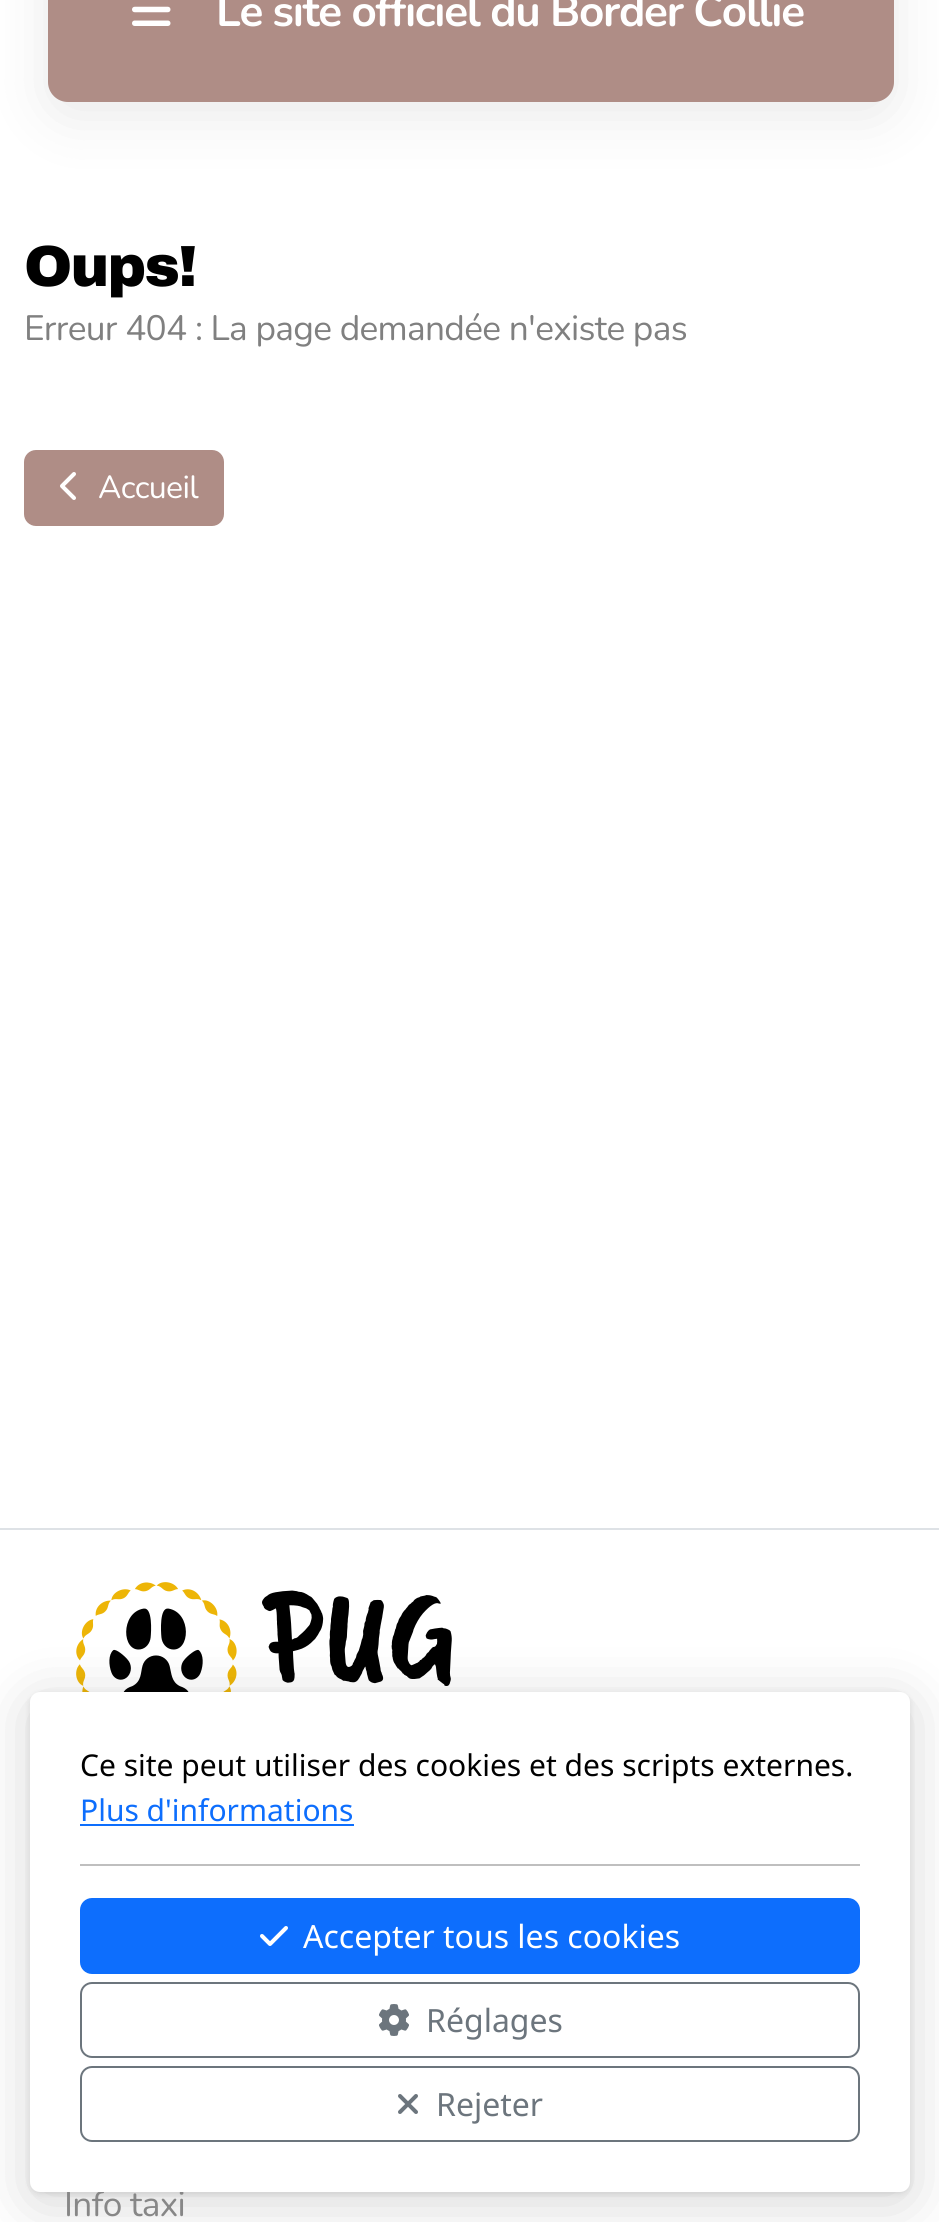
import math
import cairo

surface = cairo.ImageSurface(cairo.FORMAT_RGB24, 939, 2222)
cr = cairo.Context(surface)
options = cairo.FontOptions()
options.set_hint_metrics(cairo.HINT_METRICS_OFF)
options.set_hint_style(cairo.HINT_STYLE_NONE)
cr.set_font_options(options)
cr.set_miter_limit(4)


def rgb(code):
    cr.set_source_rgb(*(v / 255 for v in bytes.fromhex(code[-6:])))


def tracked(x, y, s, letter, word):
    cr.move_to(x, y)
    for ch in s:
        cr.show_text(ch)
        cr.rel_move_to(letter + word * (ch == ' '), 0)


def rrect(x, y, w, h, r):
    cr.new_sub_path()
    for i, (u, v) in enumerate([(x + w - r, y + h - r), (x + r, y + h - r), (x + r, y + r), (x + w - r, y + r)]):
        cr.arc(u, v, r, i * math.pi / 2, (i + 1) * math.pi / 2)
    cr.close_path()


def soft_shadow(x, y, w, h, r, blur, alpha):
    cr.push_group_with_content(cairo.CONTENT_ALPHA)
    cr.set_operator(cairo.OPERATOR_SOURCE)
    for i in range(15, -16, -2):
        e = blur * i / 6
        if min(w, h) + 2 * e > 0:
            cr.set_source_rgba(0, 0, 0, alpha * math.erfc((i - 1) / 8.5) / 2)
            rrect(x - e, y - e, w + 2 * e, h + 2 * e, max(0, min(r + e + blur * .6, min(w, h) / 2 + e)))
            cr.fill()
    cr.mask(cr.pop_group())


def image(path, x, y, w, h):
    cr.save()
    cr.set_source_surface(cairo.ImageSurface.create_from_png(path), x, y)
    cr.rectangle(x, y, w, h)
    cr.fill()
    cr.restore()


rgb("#ffffff")
cr.paint()
rgb("#000000")
soft_shadow(48, -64, 846, 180, 20, 29, 0.09)
rgb("#af8d86")
rrect(48, -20, 846, 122, 20)
cr.fill()
image("img/1.png", 132, 6, 39, 20)
rrect(25, 451, 198, 74, 11)
cr.fill_preserve()
cr.stroke()
image("img/2.png", 60, 472, 16, 28)
rgb("#dee2e6")
cr.rectangle(0, 1528, 939, 2)
cr.fill()
image("img/3.png", 76, 1582, 376, 110)
rgb("#000000")
soft_shadow(30, 1702, 880, 500, 10, 30, 0.16)
soft_shadow(30, 1694, 880, 500, 10, 3, 0.1)
cr.select_font_face("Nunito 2 ExtraLight")
cr.set_font_size(44)
rgb("#ffffff")
tracked(216, 26, "Le site officiel du Border Collie", -1.3, 0)
cr.select_font_face("Archivo Black Black")
cr.set_font_size(58)
rgb("#000000")
tracked(24, 286, "Oups!", -1.75, 0)
cr.select_font_face("Nunito ExtraLight")
cr.set_font_size(35.25)
rgb("#808080")
tracked(24, 340, "Erreur 404 : La page demandée n'existe pas", -0.7, 0)
cr.set_font_size(32)
rgb("#ffffff")
tracked(98, 498, "Accueil", -0.7, 0)
cr.set_font_size(35.25)
rgb("#878787")
tracked(64, 2216, "Info taxi", -0.7, 0)
rgb("#ffffff")
rrect(30, 1692, 880, 500, 10)
cr.fill()
cr.select_font_face("Noto Sans")
cr.set_font_size(30)
rgb("#000000")
cr.move_to(80, 1776)
cr.show_text("Ce site peut utiliser des cookies et des scripts externes.")
rgb("#0d6efd")
cr.move_to(80, 1821)
cr.show_text("Plus d'informations")
cr.rectangle(80, 1824, 274, 2)
cr.fill()
rgb("#bfbfbf")
cr.rectangle(80, 1864, 780, 2)
cr.fill()
rgb("#0d6efd")
rrect(81, 1899, 778, 74, 11)
cr.fill_preserve()
cr.stroke()
image("img/4.png", 260, 1926, 28, 20)
cr.set_font_size(32)
rgb("#ffffff")
cr.move_to(303, 1948)
cr.show_text("Accepter tous les cookies")
rrect(81, 1983, 778, 74, 11)
rgb("#6c757d")
cr.stroke()
image("img/5.png", 379, 2004, 30, 32)
cr.move_to(426, 2032)
cr.show_text("Réglages")
rrect(81, 2067, 778, 74, 11)
cr.stroke()
image("img/6.png", 398, 2094, 20, 20)
cr.move_to(436, 2116)
cr.show_text("Rejeter")
surface.write_to_png("page.png")
